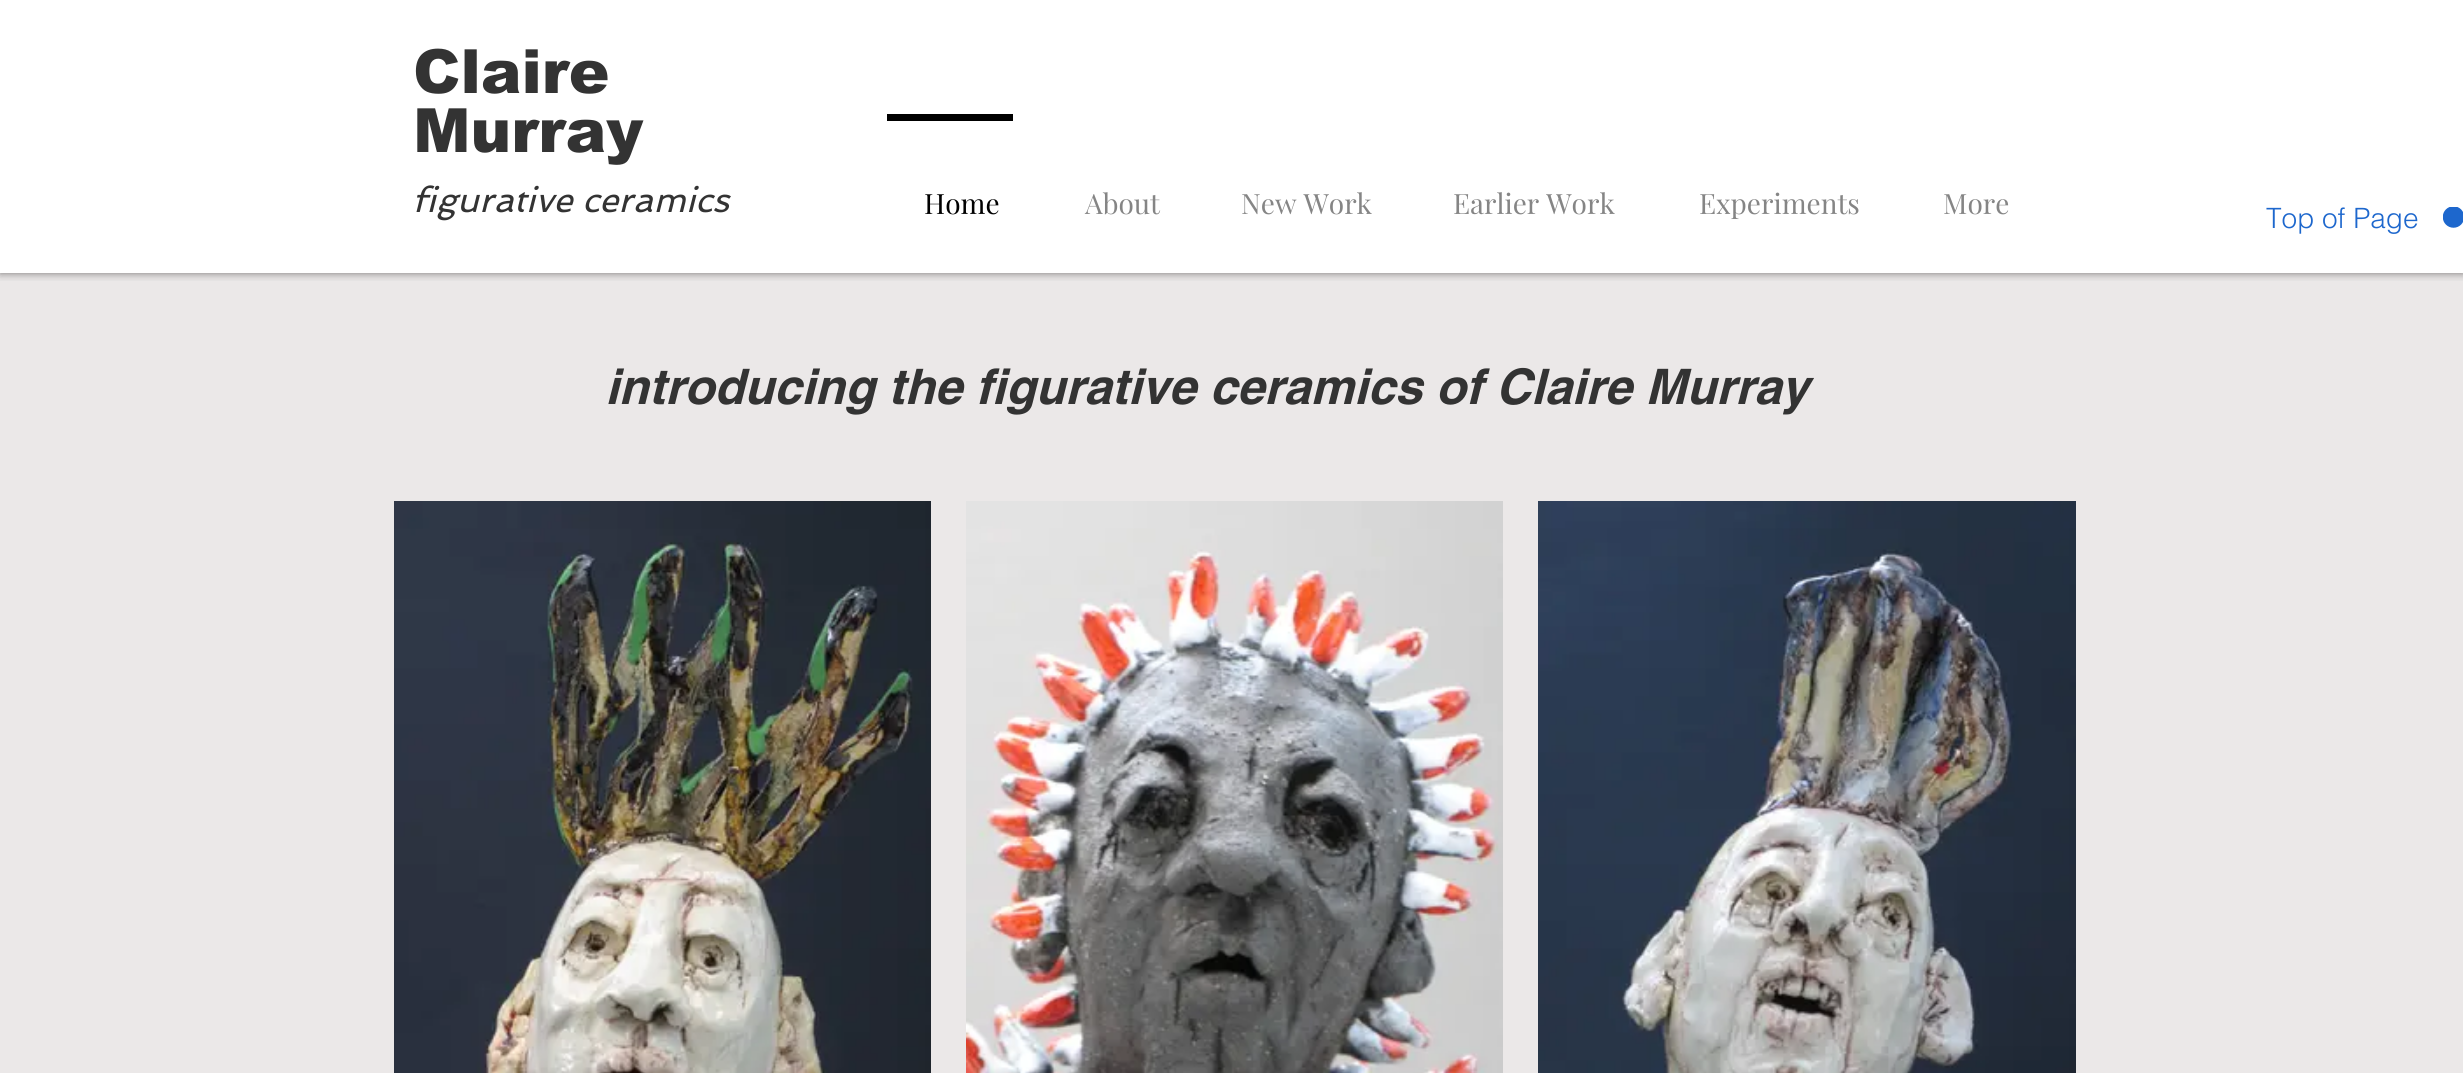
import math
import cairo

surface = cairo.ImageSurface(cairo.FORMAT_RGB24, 2463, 1073)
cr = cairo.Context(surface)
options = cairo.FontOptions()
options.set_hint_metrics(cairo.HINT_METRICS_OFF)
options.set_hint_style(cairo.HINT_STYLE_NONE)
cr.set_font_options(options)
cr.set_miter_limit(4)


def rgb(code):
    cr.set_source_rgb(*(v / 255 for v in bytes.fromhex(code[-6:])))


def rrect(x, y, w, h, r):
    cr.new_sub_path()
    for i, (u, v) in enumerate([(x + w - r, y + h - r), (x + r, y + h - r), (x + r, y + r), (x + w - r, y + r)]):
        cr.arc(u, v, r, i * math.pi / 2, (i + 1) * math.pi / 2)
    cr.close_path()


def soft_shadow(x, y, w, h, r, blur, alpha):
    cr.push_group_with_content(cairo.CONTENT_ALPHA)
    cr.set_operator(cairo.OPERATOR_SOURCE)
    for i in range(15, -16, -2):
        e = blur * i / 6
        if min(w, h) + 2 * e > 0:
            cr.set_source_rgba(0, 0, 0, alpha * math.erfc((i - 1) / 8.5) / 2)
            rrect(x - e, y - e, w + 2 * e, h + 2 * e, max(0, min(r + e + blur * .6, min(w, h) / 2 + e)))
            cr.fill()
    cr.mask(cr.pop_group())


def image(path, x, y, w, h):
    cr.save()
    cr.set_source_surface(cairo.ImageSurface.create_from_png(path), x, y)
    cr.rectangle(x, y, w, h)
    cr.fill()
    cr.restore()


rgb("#ffffff")
cr.paint()
rgb("#ebe8e8")
cr.rectangle(0, 273, 2463, 800)
cr.fill()
cr.save()
cr.rectangle(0, 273, 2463, 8)
cr.clip()
rgb("#000000")
soft_shadow(0, 0, 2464, 273, 0, 4.5, 0.5)
cr.restore()
rgb("#000000")
cr.rectangle(887, 114, 126, 7)
cr.fill()
rgb("#1d67cd")
cr.arc(2453.5, 217, 9, 0, 2 * math.pi)
cr.fill()
cr.save()
cr.rectangle(2443, 207, 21, 21)
cr.clip()
cr.arc(2453.5, 217, 9, 0, 2 * math.pi)
cr.set_line_width(3.5)
cr.stroke()
cr.restore()
image("img/1.png", 394, 501, 537, 572)
image("img/2.png", 966, 501, 537, 572)
image("img/3.png", 1538, 501, 538, 572)
cr.select_font_face("arial Black")
cr.set_font_size(61)
rgb("#333333")
cr.move_to(413, 93)
cr.show_text("Claire")
cr.move_to(413, 152)
cr.show_text("Murray")
cr.select_font_face("Spinnaker", cairo.FONT_SLANT_ITALIC)
cr.set_font_size(35)
cr.move_to(413, 212)
cr.show_text("figurative ceramics")
cr.select_font_face("Playfair Display")
cr.set_font_size(28)
rgb("#000000")
cr.move_to(924, 214)
cr.show_text("Home")
rgb("#858585")
for x, y, s in [
    (1085, 214, "About"),
    (1241, 214, "New Work"),
    (1453, 214, "Earlier Work"),
    (1699, 214, "Experiments"),
    (1943, 214, "More"),
]:
    cr.move_to(x, y)
    cr.show_text(s)
cr.select_font_face("helvetica Light")
rgb("#1d67cd")
cr.move_to(2266, 228)
cr.show_text("Top of Page")
cr.select_font_face("helvetica", cairo.FONT_SLANT_ITALIC, cairo.FONT_WEIGHT_BOLD)
cr.set_font_size(49)
rgb("#333333")
cr.move_to(605, 404)
cr.show_text("introducing the figurative ceramics of Claire Murray")
surface.write_to_png("page.png")
